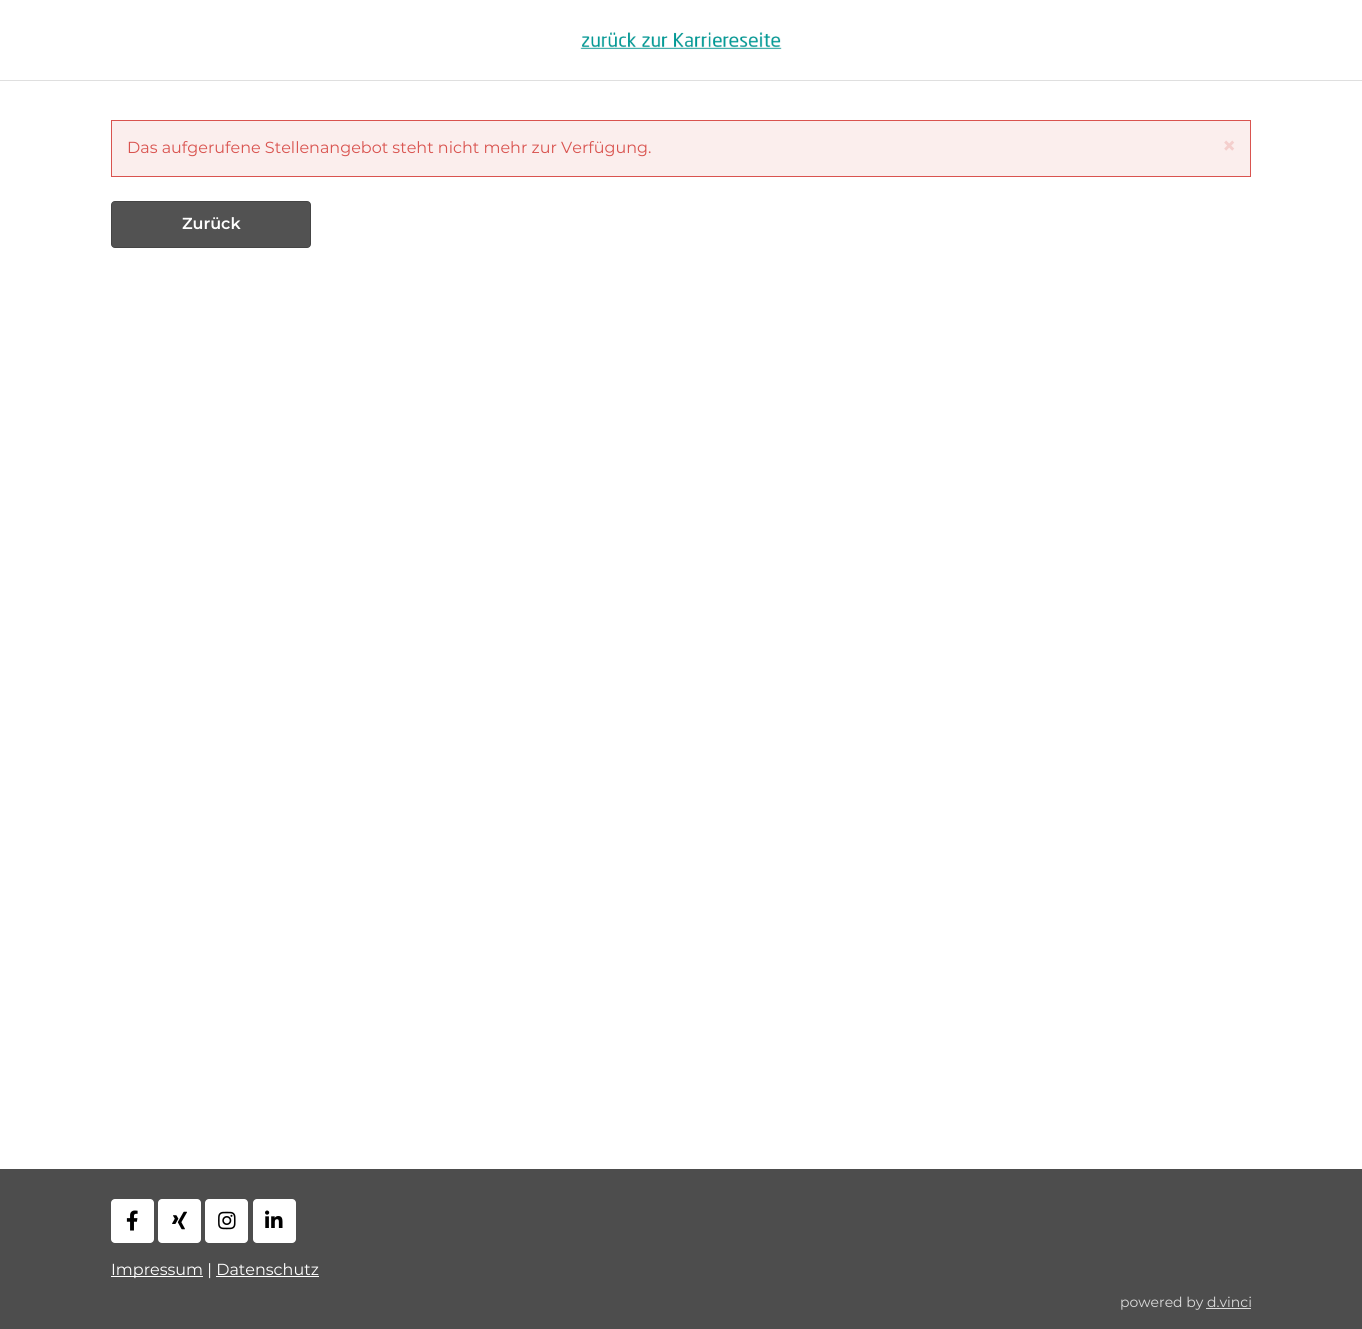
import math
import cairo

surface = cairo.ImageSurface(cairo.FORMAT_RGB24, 1362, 1329)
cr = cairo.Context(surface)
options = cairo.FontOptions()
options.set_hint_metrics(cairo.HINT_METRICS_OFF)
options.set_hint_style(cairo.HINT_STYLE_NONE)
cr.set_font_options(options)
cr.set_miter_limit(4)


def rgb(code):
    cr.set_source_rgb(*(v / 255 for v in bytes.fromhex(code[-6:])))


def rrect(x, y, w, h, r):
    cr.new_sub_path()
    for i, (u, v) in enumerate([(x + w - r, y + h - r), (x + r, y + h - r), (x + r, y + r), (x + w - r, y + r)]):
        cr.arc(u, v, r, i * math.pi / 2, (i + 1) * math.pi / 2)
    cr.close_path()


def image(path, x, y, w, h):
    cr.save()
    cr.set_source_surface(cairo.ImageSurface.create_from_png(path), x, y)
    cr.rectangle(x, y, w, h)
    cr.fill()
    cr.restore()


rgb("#ffffff")
cr.paint()
rgb("#dfdfdf")
cr.rectangle(0, 80, 1362, 1)
cr.fill()
image("img/1.png", 580, 32, 202, 18)
rgb("#fbeeed")
cr.rectangle(111.5, 120.5, 1139, 56)
cr.fill_preserve()
rgb("#d9534f")
cr.set_line_width(1)
cr.stroke()
rgb("#525252")
rrect(111.5, 201.5, 199, 46, 3.5)
cr.fill_preserve()
rgb("#454545")
cr.stroke()
rgb("#4d4d4d")
cr.rectangle(0, 1169, 1362, 160)
cr.fill()
rgb("#ffffff")
rrect(111, 1199, 43, 44, 4)
cr.fill()
image("img/2.png", 126, 1210, 12, 21)
rrect(158, 1199, 43, 44, 4)
cr.fill()
image("img/3.png", 172, 1211, 15, 19)
rrect(205, 1199, 43, 44, 4)
cr.fill()
image("img/4.png", 218, 1211, 18, 19)
rrect(253, 1199, 43, 44, 4)
cr.fill()
image("img/5.png", 265, 1210, 18, 18)
for x, y, w, h, color in [
    (111, 1276, 92, 1, "#ffffff"),
    (216, 1276, 103, 1, "#ffffff"),
    (1206, 1308, 45, 1, "#dbdbdb"),
]:
    rgb(color)
    cr.rectangle(x, y, w, h)
    cr.fill()
cr.select_font_face("Montserrat")
cr.set_font_size(16)
rgb("#d9534f")
cr.move_to(127, 153)
cr.show_text("Das aufgerufene Stellenangebot steht nicht mehr zur Verfügung.")
cr.select_font_face("Montserrat", cairo.FONT_SLANT_NORMAL, cairo.FONT_WEIGHT_BOLD)
cr.set_font_size(24)
rgb("#f4cfcd")
cr.move_to(1222, 154)
cr.show_text("×")
cr.select_font_face("Montserrat SemiBold")
cr.set_font_size(16)
rgb("#ffffff")
cr.move_to(182, 229)
cr.show_text("Zurück")
cr.select_font_face("Montserrat")
cr.move_to(111, 1275)
cr.show_text("Impressum | Datenschutz")
cr.set_font_size(14)
rgb("#dbdbdb")
cr.move_to(1120, 1307)
cr.show_text("powered by d.vinci")
surface.write_to_png("page.png")
